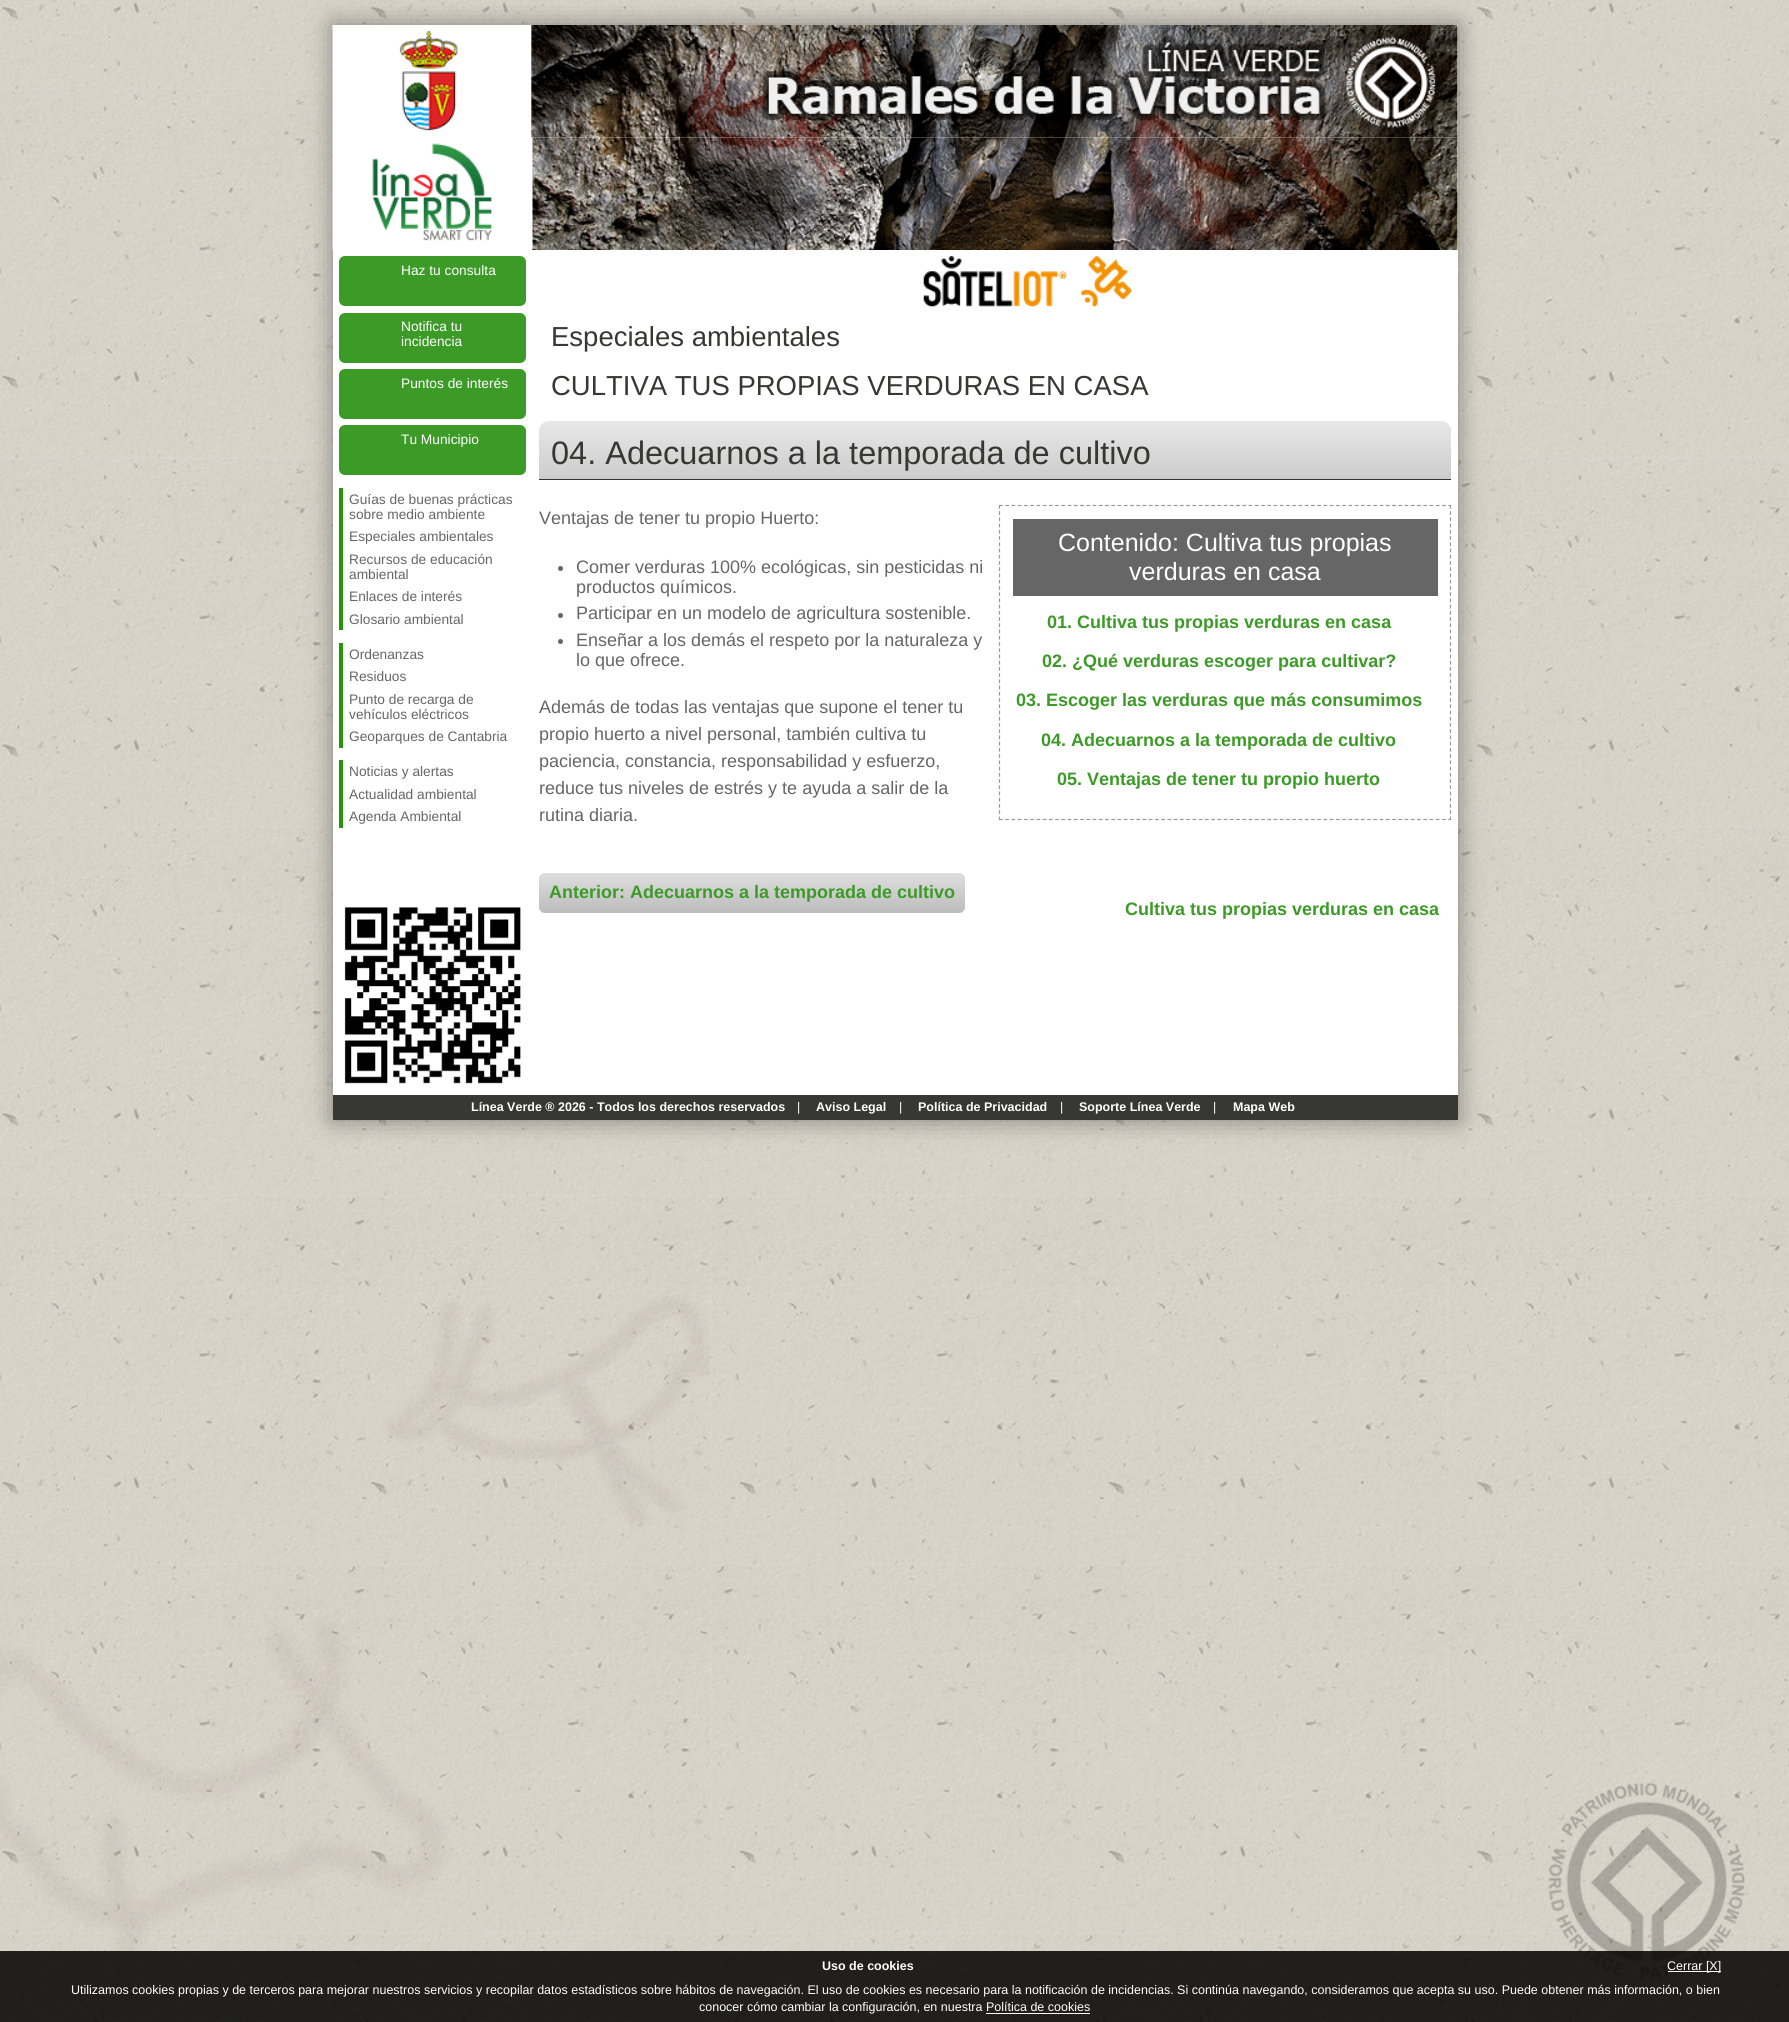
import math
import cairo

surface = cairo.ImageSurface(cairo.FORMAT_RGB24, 1789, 2022)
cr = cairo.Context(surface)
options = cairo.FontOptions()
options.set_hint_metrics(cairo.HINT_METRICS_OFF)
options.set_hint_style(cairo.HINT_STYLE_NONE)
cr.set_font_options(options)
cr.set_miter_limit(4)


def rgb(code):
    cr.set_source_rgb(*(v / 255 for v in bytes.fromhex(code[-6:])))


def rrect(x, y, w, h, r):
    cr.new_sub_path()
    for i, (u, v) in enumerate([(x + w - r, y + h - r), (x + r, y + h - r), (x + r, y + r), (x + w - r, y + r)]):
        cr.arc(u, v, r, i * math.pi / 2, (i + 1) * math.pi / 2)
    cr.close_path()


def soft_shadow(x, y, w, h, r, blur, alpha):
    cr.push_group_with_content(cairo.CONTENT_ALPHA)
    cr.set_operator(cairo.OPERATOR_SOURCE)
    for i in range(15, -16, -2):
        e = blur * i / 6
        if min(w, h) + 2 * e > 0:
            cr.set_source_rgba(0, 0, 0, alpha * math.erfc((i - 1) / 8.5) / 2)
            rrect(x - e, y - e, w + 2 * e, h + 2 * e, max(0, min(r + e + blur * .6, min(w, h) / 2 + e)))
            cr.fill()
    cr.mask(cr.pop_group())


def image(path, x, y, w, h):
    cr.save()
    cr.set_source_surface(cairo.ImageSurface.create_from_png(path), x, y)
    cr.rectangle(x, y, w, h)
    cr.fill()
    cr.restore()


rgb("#e7e4dd")
cr.paint()
image("img/1.png", 0, 0, 1789, 2022)
rgb("#000000")
soft_shadow(333, 25, 1125, 1095, 0, 12.5, 0.4)
rgb("#ffffff")
cr.rectangle(333, 25, 1125, 1070)
cr.fill()
image("img/2.png", 332, 25, 1126, 113)
image("img/3.png", 332, 137, 201, 113)
image("img/4.png", 532, 137, 926, 113)
image("img/5.png", 923, 256, 209, 51)
rgb("#3c9b27")
rrect(339, 256, 187, 50, 6)
cr.fill()
rrect(339, 313, 187, 50, 6)
cr.fill()
rrect(339, 369, 187, 50, 6)
cr.fill()
rrect(339, 425, 187, 50, 6)
cr.fill()
for x, y, w, h, color in [
    (339, 488, 4, 142, "#259603"),
    (339, 643, 4, 105, "#259603"),
    (339, 760, 4, 68, "#259603"),
]:
    rgb(color)
    cr.rectangle(x, y, w, h)
    cr.fill()
image("img/6.png", 344, 907, 177, 177)
gradient = cairo.LinearGradient(995, 421, 995, 479)
gradient.add_color_stop_rgba(0, 0.91, 0.91, 0.91, 1)
gradient.add_color_stop_rgba(1, 0.8, 0.8, 0.8, 1)
cr.set_source(gradient)
cr.new_path()
cr.move_to(549, 421)
cr.line_to(1441, 421)
cr.curve_to(1446.5, 421, 1451, 425.5, 1451, 431)
cr.line_to(1451, 479)
cr.line_to(539, 479)
cr.line_to(539, 431)
cr.curve_to(539, 425.5, 543.5, 421, 549, 421)
cr.close_path()
cr.fill()
rgb("#333333")
cr.rectangle(539, 479, 912, 1)
cr.fill()
rgb("#666666")
cr.arc(560.5, 568.5, 2.5, 0, 2 * math.pi)
cr.fill()
cr.arc(560.5, 615.5, 2.5, 0, 2 * math.pi)
cr.fill()
cr.arc(560.5, 641.5, 2.5, 0, 2 * math.pi)
cr.fill()
cr.new_path()
cr.move_to(999, 505.5)
cr.line_to(1451, 505.5)
rgb("#999999")
cr.set_line_width(1.2)
cr.set_dash([3.75, 2.49])
cr.stroke()
cr.new_path()
cr.move_to(1450.5, 505)
cr.line_to(1450.5, 820)
cr.set_dash([3.75, 2.48])
cr.stroke()
cr.new_path()
cr.move_to(999, 819.5)
cr.line_to(1451, 819.5)
cr.set_dash([3.75, 2.49])
cr.stroke()
cr.new_path()
cr.move_to(999.5, 505)
cr.line_to(999.5, 820)
cr.set_dash([3.75, 2.48])
cr.stroke()
rgb("#666666")
cr.rectangle(1013, 519, 425, 77)
cr.fill()
gradient = cairo.LinearGradient(752, 873, 752, 913)
gradient.add_color_stop_rgba(0, 0.871, 0.871, 0.871, 1)
gradient.add_color_stop_rgba(1, 0.737, 0.737, 0.737, 1)
cr.set_source(gradient)
rrect(539, 873, 426, 40, 6)
cr.fill()
rgb("#373736")
cr.rectangle(333, 1095, 1125, 25)
cr.fill()
cr.set_source_rgba(0, 0, 0, 0.85)
cr.rectangle(0, 1951, 1789, 71)
cr.fill()
rgb("#ffffff")
cr.rectangle(1668, 1971, 53, 1)
cr.rectangle(986, 2013, 104, 1)
cr.fill()
cr.select_font_face("Liberation Sans")
cr.set_font_size(13.75)
for x, y, s in [
    (401, 275, "Haz tu consulta"),
    (401, 331, "Notifica tu"),
    (401, 346, "incidencia"),
    (401, 388, "Puntos de interés"),
    (401, 444, "Tu Municipio"),
]:
    cr.move_to(x, y)
    cr.show_text(s)
rgb("#666666")
for x, y, s in [
    (349, 504, "Guías de buenas prácticas"),
    (349, 519, "sobre medio ambiente"),
    (349, 541, "Especiales ambientales"),
    (349, 564, "Recursos de educación"),
    (349, 579, "ambiental"),
    (349, 601, "Enlaces de interés"),
    (349, 624, "Glosario ambiental"),
    (349, 659, "Ordenanzas"),
    (349, 681, "Residuos"),
    (349, 704, "Punto de recarga de"),
    (349, 719, "vehículos eléctricos"),
    (349, 741, "Geoparques de Cantabria"),
    (349, 776, "Noticias y alertas"),
    (349, 799, "Actualidad ambiental"),
    (349, 821, "Agenda Ambiental"),
]:
    cr.move_to(x, y)
    cr.show_text(s)
cr.set_font_size(27.5)
rgb("#373736")
cr.move_to(551, 346)
cr.show_text("Especiales ambientales")
cr.move_to(551, 395)
cr.show_text("CULTIVA TUS PROPIAS VERDURAS EN CASA")
cr.set_font_size(32.5)
cr.move_to(551, 464)
cr.show_text("04. Adecuarnos a la temporada de cultivo")
cr.set_font_size(18)
rgb("#666666")
for x, y, s in [
    (539, 524, "Ventajas de tener tu propio Huerto:"),
    (576, 573, "Comer verduras 100% ecológicas, sin pesticidas ni"),
    (576, 593, "productos químicos."),
    (576, 619, "Participar en un modelo de agricultura sostenible."),
    (576, 646, "Enseñar a los demás el respeto por la naturaleza y"),
    (576, 666, "lo que ofrece."),
]:
    cr.move_to(x, y)
    cr.show_text(s)
cr.set_font_size(25)
rgb("#ffffff")
cr.move_to(1058, 551)
cr.show_text("Contenido: Cultiva tus propias")
cr.move_to(1129, 580)
cr.show_text("verduras en casa")
cr.select_font_face("Liberation Sans", cairo.FONT_SLANT_NORMAL, cairo.FONT_WEIGHT_BOLD)
cr.set_font_size(18)
rgb("#3c9b27")
for x, y, s in [
    (1047, 628, "01. Cultiva tus propias verduras en casa"),
    (1042, 667, "02. ¿Qué verduras escoger para cultivar?"),
    (1016, 706, "03. Escoger las verduras que más consumimos"),
    (1041, 746, "04. Adecuarnos a la temporada de cultivo"),
    (1057, 785, "05. Ventajas de tener tu propio huerto"),
]:
    cr.move_to(x, y)
    cr.show_text(s)
cr.select_font_face("Liberation Sans")
rgb("#666666")
for x, y, s in [
    (539, 713, "Además de todas las ventajas que supone el tener tu"),
    (539, 740, "propio huerto a nivel personal, también cultiva tu"),
    (539, 767, "paciencia, constancia, responsabilidad y esfuerzo,"),
    (539, 794, "reduce tus niveles de estrés y te ayuda a salir de la"),
    (539, 821, "rutina diaria."),
]:
    cr.move_to(x, y)
    cr.show_text(s)
cr.select_font_face("Liberation Sans", cairo.FONT_SLANT_NORMAL, cairo.FONT_WEIGHT_BOLD)
rgb("#3c9b27")
cr.move_to(549, 898)
cr.show_text("Anterior: Adecuarnos a la temporada de cultivo")
cr.move_to(1125, 915)
cr.show_text("Cultiva tus propias verduras en casa")
cr.set_font_size(12.5)
rgb("#ffffff")
cr.move_to(471, 1111)
cr.show_text("Línea Verde ® 2026 - Todos los derechos reservados")
cr.select_font_face("Liberation Sans")
cr.move_to(797, 1111)
cr.show_text("|")
cr.select_font_face("Liberation Sans", cairo.FONT_SLANT_NORMAL, cairo.FONT_WEIGHT_BOLD)
cr.move_to(816, 1111)
cr.show_text("Aviso Legal")
cr.select_font_face("Liberation Sans")
cr.move_to(899, 1111)
cr.show_text("|")
cr.select_font_face("Liberation Sans", cairo.FONT_SLANT_NORMAL, cairo.FONT_WEIGHT_BOLD)
cr.move_to(918, 1111)
cr.show_text("Política de Privacidad")
cr.select_font_face("Liberation Sans")
cr.move_to(1060, 1111)
cr.show_text("|")
cr.select_font_face("Liberation Sans", cairo.FONT_SLANT_NORMAL, cairo.FONT_WEIGHT_BOLD)
cr.move_to(1079, 1111)
cr.show_text("Soporte Línea Verde")
cr.select_font_face("Liberation Sans")
cr.move_to(1213, 1111)
cr.show_text("|")
cr.select_font_face("Liberation Sans", cairo.FONT_SLANT_NORMAL, cairo.FONT_WEIGHT_BOLD)
cr.move_to(1233, 1111)
cr.show_text("Mapa Web")
cr.move_to(822, 1970)
cr.show_text("Uso de cookies")
cr.select_font_face("Liberation Sans")
for x, y, s in [
    (1667, 1970, "Cerrar [X]"),
    (71, 1994, "Utilizamos cookies propias y de terceros para mejorar nuestros servicios y recopilar datos estadísticos sobre hábitos de navegación. El uso de cookies es necesario para la notificación de incidencias. Si continúa navegando, consideramos que acepta su uso. Puede obtener más información, o bien"),
    (699, 2011, "conocer cómo cambiar la configuración, en nuestra Política de cookies"),
]:
    cr.move_to(x, y)
    cr.show_text(s)
surface.write_to_png("page.png")
